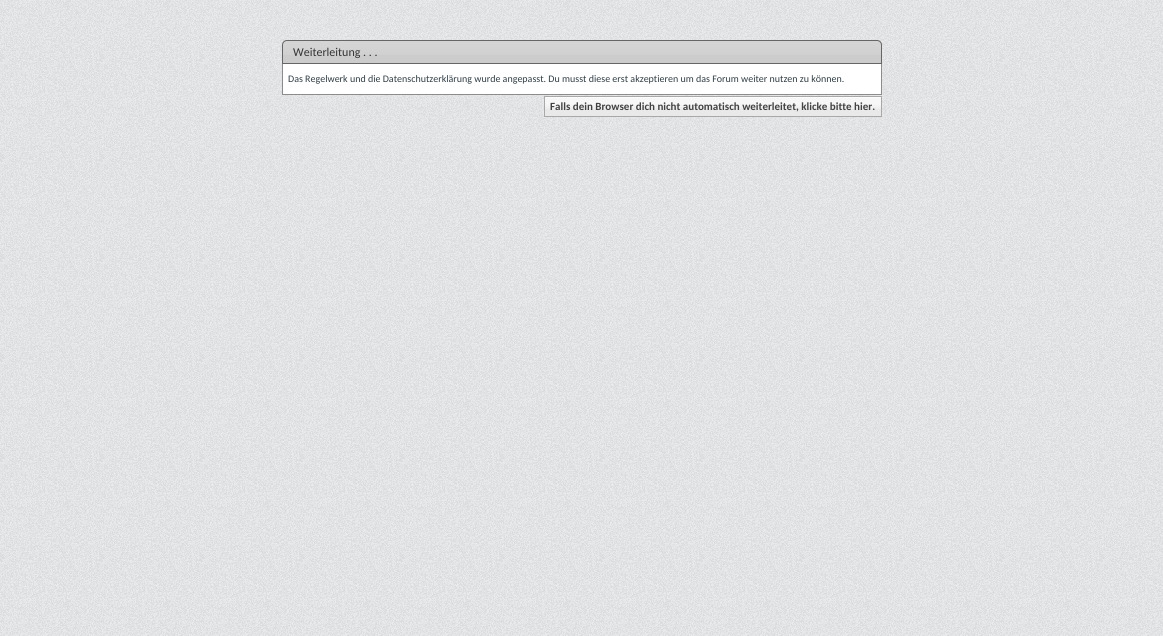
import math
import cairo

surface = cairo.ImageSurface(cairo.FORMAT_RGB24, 1163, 636)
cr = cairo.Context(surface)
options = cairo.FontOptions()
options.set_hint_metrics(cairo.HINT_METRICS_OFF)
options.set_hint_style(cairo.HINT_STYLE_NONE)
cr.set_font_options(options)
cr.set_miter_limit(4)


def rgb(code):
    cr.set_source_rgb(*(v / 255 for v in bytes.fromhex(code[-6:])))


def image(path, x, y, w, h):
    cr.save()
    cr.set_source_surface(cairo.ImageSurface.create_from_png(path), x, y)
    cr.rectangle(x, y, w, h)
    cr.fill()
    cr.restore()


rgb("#ffffff")
cr.paint()
image("img/1.png", 0, 0, 1163, 636)
rgb("#cccccc")
cr.new_path()
cr.move_to(287, 40)
cr.line_to(877, 40)
cr.curve_to(880, 40, 882, 42, 882, 45)
cr.line_to(882, 64)
cr.line_to(282, 64)
cr.line_to(282, 45)
cr.curve_to(282, 42, 284, 40, 287, 40)
cr.close_path()
cr.fill()
image("img/2.png", 282, 41, 600, 14)
cr.new_path()
cr.move_to(287, 40.5)
cr.line_to(877, 40.5)
cr.curve_to(879.5, 40.5, 881.5, 42.5, 881.5, 45)
cr.line_to(881.5, 63.5)
cr.line_to(282.5, 63.5)
cr.line_to(282.5, 45)
cr.curve_to(282.5, 42.5, 284.5, 40.5, 287, 40.5)
cr.close_path()
rgb("#666666")
cr.set_line_width(1)
cr.stroke()
for x, y, w, h, color in [
    (283, 64, 598, 30, "#ffffff"),
    (881, 64, 1, 31, "#8c8c8c"),
    (282, 94, 600, 1, "#8c8c8c"),
    (282, 64, 1, 31, "#8c8c8c"),
    (545, 97, 336, 19, "#e9e9e9"),
]:
    rgb(color)
    cr.rectangle(x, y, w, h)
    cr.fill()
image("img/3.png", 545, 97, 336, 12)
cr.rectangle(544.5, 96.5, 337, 20)
rgb("#a8a8a8")
cr.stroke()
cr.select_font_face("Carlito")
cr.set_font_size(12)
rgb("#333333")
cr.move_to(293, 56)
cr.show_text("Weiterleitung . . .")
cr.set_font_size(10)
rgb("#303d44")
cr.move_to(288, 82)
cr.show_text("Das Regelwerk und die Datenschutzerklärung wurde angepasst. Du musst diese erst akzeptieren um das Forum weiter nutzen zu können.")
cr.select_font_face("Carlito", cairo.FONT_SLANT_NORMAL, cairo.FONT_WEIGHT_BOLD)
cr.set_font_size(11)
rgb("#424242")
cr.move_to(550, 110)
cr.show_text("Falls dein Browser dich nicht automatisch weiterleitet, klicke bitte hier.")
surface.write_to_png("page.png")
